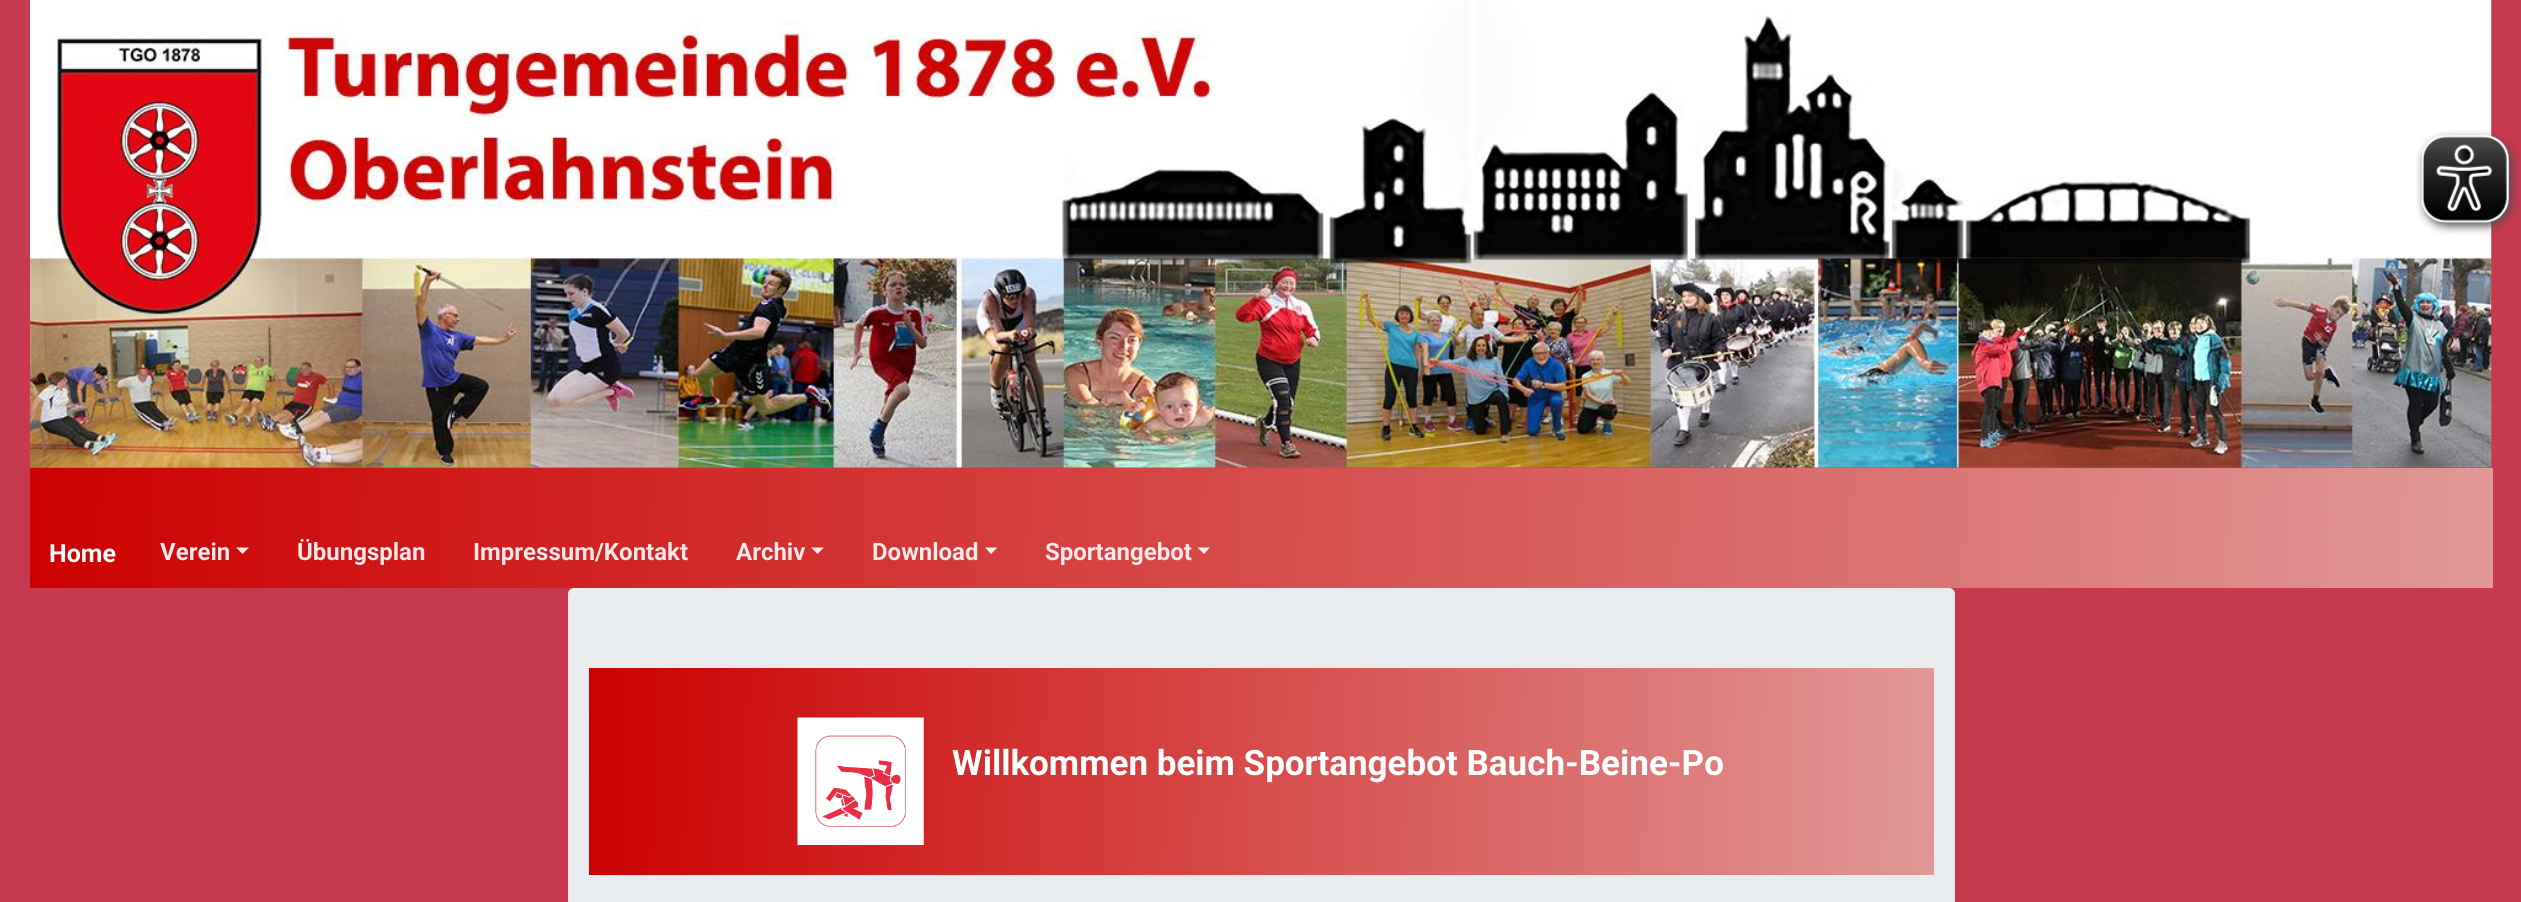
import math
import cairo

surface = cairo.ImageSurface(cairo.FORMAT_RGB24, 2521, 902)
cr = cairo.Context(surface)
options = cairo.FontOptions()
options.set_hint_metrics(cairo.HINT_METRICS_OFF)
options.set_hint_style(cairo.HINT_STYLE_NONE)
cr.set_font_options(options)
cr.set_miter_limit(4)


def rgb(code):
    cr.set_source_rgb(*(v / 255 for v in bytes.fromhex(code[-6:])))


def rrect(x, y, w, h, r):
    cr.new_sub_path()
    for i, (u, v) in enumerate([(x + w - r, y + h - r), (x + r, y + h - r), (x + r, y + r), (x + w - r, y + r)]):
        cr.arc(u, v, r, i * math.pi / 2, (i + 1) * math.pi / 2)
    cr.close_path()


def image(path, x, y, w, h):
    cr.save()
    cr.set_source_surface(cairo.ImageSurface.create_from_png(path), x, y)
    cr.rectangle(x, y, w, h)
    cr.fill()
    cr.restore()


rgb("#c7394f")
cr.paint()
image("img/2.png", 30, 0, 2462, 468)
image("img/1.png", 2416, 130, 104, 105)
gradient = cairo.LinearGradient(2493, 571, 29, 484)
gradient.add_color_stop_rgba(0, 0.882, 0.596, 0.596, 1)
gradient.add_color_stop_rgba(1, 0.8, 0, 0, 1)
cr.set_source(gradient)
cr.rectangle(30, 468, 2463, 120)
cr.fill()
rgb("#fae7e7")
cr.new_path()
cr.move_to(236, 547.5)
cr.line_to(249, 547.5)
cr.line_to(242.5, 554)
cr.close_path()
cr.fill()
rgb("#fbeaea")
cr.new_path()
cr.move_to(811, 547.5)
cr.line_to(824, 547.5)
cr.line_to(817.5, 554)
cr.close_path()
cr.fill()
rgb("#fbebeb")
cr.new_path()
cr.move_to(985, 547.5)
cr.line_to(997.5, 547.5)
cr.line_to(991, 554)
cr.close_path()
cr.fill()
rgb("#fbeded")
cr.new_path()
cr.move_to(1197.5, 547.5)
cr.line_to(1210, 547.5)
cr.line_to(1204, 554)
cr.close_path()
cr.fill()
rgb("#e9ecef")
rrect(568, 588, 1387, 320, 6)
cr.fill()
gradient = cairo.LinearGradient(1937, 795, 586, 748)
gradient.add_color_stop_rgba(0, 0.882, 0.596, 0.596, 1)
gradient.add_color_stop_rgba(1, 0.8, 0, 0, 1)
cr.set_source(gradient)
cr.rectangle(589, 668, 1345, 207)
cr.fill()
image("img/3.png", 797, 717, 127, 128)
cr.select_font_face("Roboto", cairo.FONT_SLANT_NORMAL, cairo.FONT_WEIGHT_BOLD)
cr.set_font_size(25)
rgb("#ffffff")
cr.move_to(49, 562)
cr.show_text("Home")
cr.set_font_size(24)
rgb("#fae8e8")
for x, y, s in [
    (160, 560, "Verein"),
    (297, 560, "Übungsplan"),
    (473, 560, "Impressum/Kontakt"),
    (736, 560, "Archiv"),
    (872, 560, "Download"),
    (1045, 560, "Sportangebot"),
]:
    cr.move_to(x, y)
    cr.show_text(s)
cr.set_font_size(35)
rgb("#ffffff")
cr.move_to(952, 775)
cr.show_text("Willkommen beim Sportangebot Bauch-Beine-Po")
surface.write_to_png("page.png")
